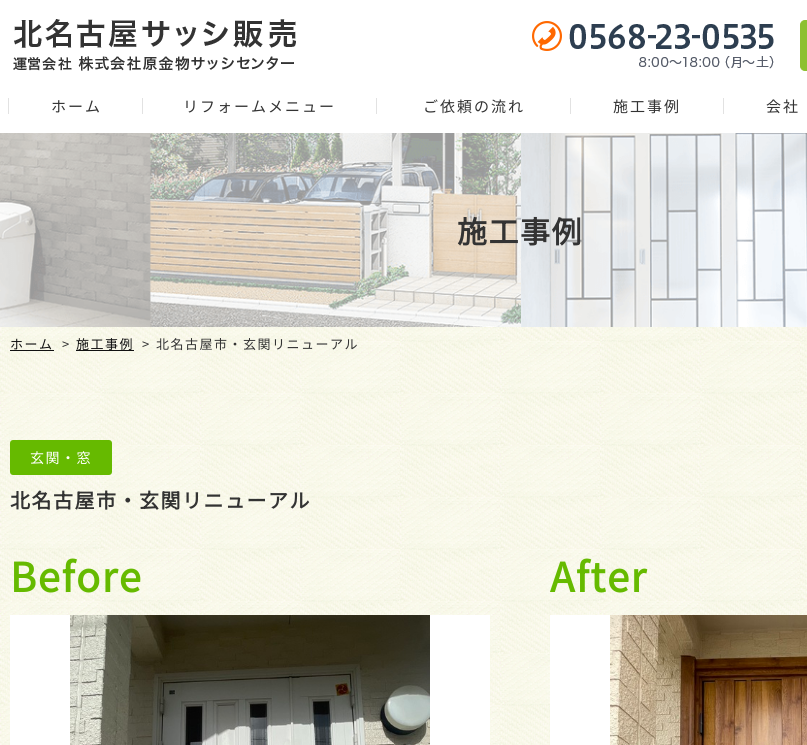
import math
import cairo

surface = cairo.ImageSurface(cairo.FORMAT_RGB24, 807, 745)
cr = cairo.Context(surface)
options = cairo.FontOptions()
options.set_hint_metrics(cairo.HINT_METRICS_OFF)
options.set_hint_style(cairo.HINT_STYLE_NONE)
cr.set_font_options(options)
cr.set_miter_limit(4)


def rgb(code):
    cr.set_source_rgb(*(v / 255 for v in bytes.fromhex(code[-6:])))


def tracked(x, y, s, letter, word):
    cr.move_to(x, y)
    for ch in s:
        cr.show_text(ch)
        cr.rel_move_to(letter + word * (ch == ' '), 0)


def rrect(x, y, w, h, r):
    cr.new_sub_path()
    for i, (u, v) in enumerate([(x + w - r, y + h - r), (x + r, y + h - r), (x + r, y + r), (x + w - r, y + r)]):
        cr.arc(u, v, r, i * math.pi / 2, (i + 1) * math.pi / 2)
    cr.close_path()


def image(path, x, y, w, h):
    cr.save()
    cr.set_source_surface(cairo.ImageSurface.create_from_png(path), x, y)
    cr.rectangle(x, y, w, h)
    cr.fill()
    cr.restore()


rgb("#ffffff")
cr.paint()
image("img/1.png", 13, 19, 283, 52)
image("img/2.png", 532, 21, 242, 48)
rgb("#8dc031")
rrect(800.5, 20.5, 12, 50, 4.5)
cr.fill_preserve()
cr.set_line_width(1)
cr.stroke()
for x, y, w, h, color in [
    (142, 98, 1, 16, "#e2e2e2"),
    (8, 98, 1, 16, "#e2e2e2"),
    (376, 98, 1, 16, "#e2e2e2"),
    (570, 98, 1, 16, "#e2e2e2"),
    (723, 98, 1, 16, "#e2e2e2"),
]:
    rgb(color)
    cr.rectangle(x, y, w, h)
    cr.fill()
image("img/3.png", 0, 327, 807, 418)
image("img/4.png", 0, 133, 807, 194)
rgb("#111111")
cr.rectangle(10, 350, 44, 1)
cr.fill()
cr.rectangle(76, 350, 58, 1)
cr.fill()
rgb("#66ba00")
rrect(10, 440, 102, 35, 3)
cr.fill()
rgb("#ffffff")
cr.rectangle(10, 615, 480, 130)
cr.fill()
image("img/5.png", 70, 615, 360, 130)
cr.rectangle(550, 615, 60, 130)
cr.fill()
image("img/6.png", 610, 615, 197, 130)
cr.select_font_face("Noto Sans JP Thin")
cr.set_font_size(15)
rgb("#333333")
for x, y, s in [
    (51, 112, "ホーム"),
    (183, 112, "リフォームメニュー"),
    (423, 112, "ご依頼の流れ"),
    (613, 112, "施工事例"),
    (766, 112, "会社"),
]:
    tracked(x, y, s, 2, 0)
cr.select_font_face("Noto Sans JP", cairo.FONT_SLANT_NORMAL, cairo.FONT_WEIGHT_BOLD)
cr.set_font_size(30)
tracked(457, 243, "施工事例", 1.5, 0)
cr.select_font_face("Noto Sans JP Thin")
cr.set_font_size(13)
rgb("#111111")
tracked(10, 349, "ホーム", 1.5, 0)
rgb("#333333")
tracked(62, 349, ">", 1.5, 0)
rgb("#111111")
tracked(76, 349, "施工事例", 1.5, 0)
rgb("#333333")
tracked(142, 349, ">", 1.5, 0)
tracked(156, 349, "北名古屋市・玄関リニューアル", 1.5, 0)
cr.set_font_size(14)
rgb("#ffffff")
tracked(30, 463, "玄関・窓", 1.5, 0)
cr.select_font_face("Noto Sans JP", cairo.FONT_SLANT_NORMAL, cairo.FONT_WEIGHT_BOLD)
cr.set_font_size(20)
rgb("#333333")
tracked(10, 508, "北名古屋市・玄関リニューアル", 1.5, 0)
cr.set_font_size(40)
rgb("#66ba00")
tracked(10, 592, "Before", 1.5, 0)
tracked(550, 592, "After", 1.5, 0)
surface.write_to_png("page.png")
